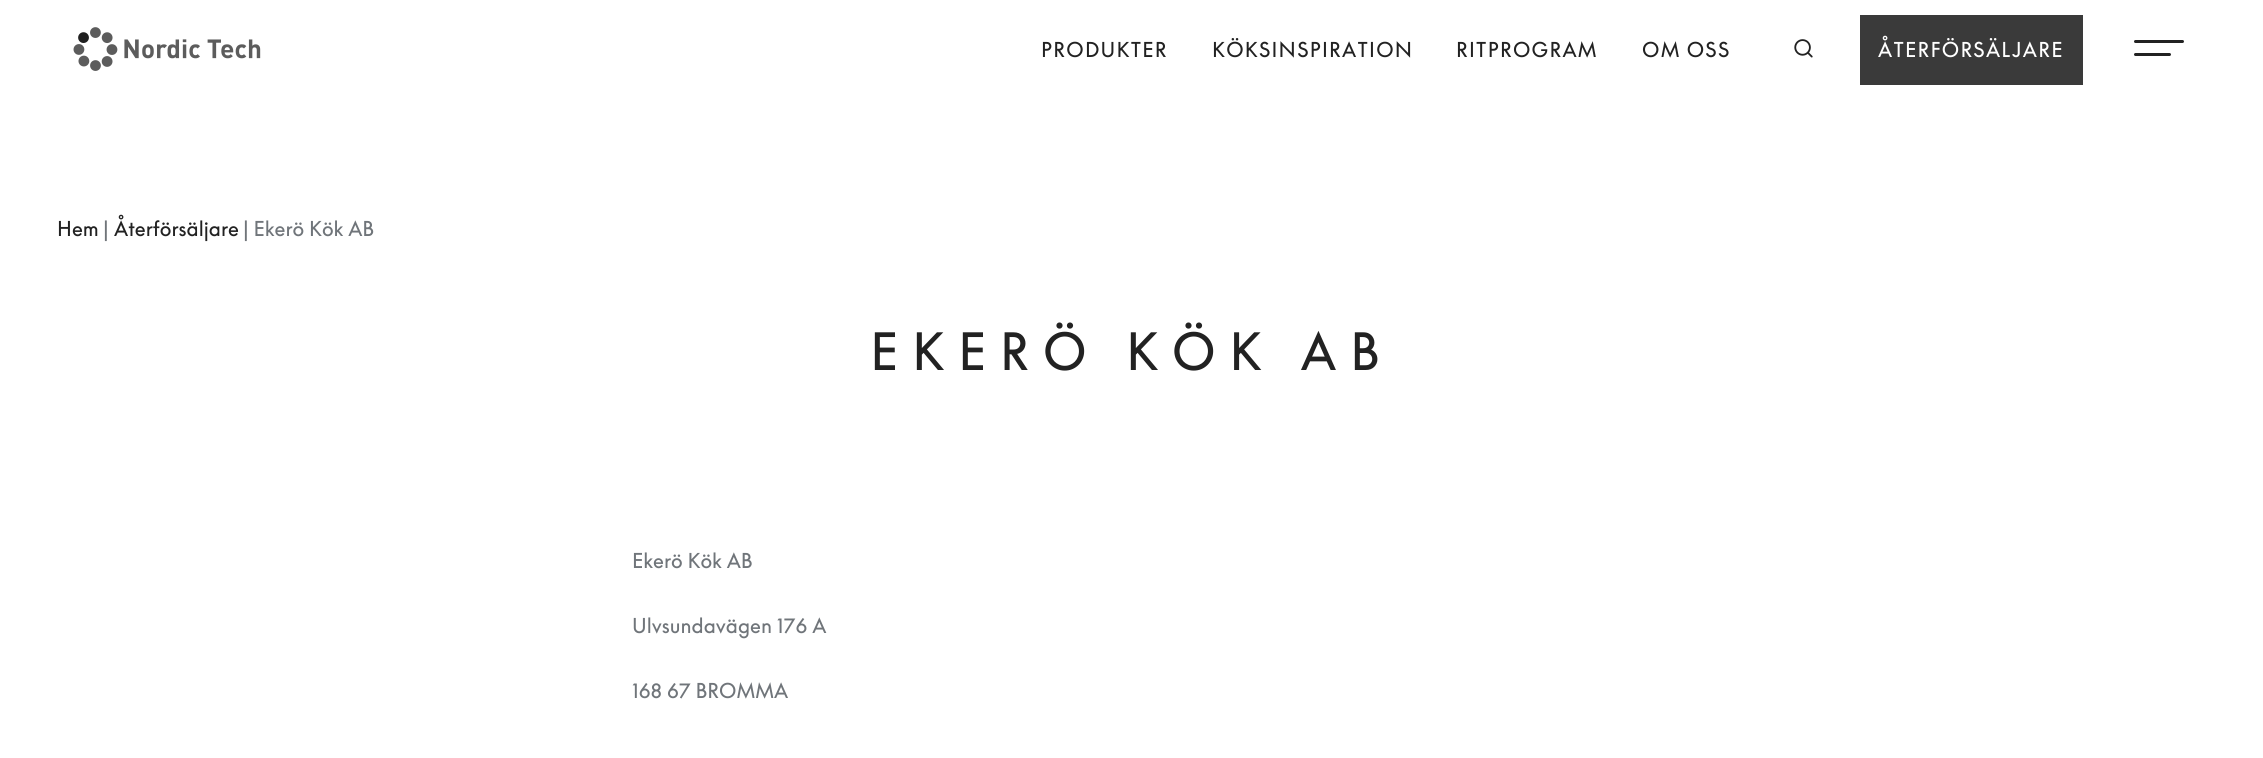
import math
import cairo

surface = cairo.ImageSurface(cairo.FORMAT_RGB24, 2263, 758)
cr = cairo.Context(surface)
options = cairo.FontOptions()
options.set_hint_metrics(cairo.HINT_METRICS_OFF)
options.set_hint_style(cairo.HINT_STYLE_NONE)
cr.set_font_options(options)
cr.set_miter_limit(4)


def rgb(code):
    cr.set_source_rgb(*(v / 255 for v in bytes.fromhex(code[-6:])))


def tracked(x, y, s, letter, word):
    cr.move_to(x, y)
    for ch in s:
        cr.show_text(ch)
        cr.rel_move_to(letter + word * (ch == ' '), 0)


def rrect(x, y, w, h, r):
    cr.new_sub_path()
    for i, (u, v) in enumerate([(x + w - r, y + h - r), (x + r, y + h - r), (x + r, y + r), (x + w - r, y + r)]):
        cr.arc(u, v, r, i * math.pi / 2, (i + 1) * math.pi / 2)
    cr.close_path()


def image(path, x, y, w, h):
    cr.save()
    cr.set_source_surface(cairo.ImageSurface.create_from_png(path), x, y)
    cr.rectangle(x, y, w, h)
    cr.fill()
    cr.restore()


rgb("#ffffff")
cr.paint()
image("img/1.png", 73, 27, 188, 44)
image("img/2.png", 1794, 39, 19, 19)
rgb("#3a3a3a")
cr.rectangle(1860, 15, 223, 70)
cr.fill()
rgb("#222222")
rrect(2134, 53, 37, 3, 1.5)
cr.fill()
rrect(2134, 40, 50, 3, 1.5)
cr.fill()
cr.select_font_face("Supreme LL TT")
cr.set_font_size(20)
for x, y, s in [
    (1041, 57, "PRODUKTER"),
    (1212, 57, "KÖKSINSPIRATION"),
    (1456, 57, "RITPROGRAM"),
    (1642, 57, "OM OSS"),
]:
    tracked(x, y, s, 1.25, 0)
rgb("#ffffff")
tracked(1878, 57, "ÅTERFÖRSÄLJARE", 1.25, 0)
rgb("#222222")
cr.move_to(57, 236)
cr.show_text("Hem")
rgb("#70757a")
cr.move_to(103, 236)
cr.show_text("|")
rgb("#222222")
cr.move_to(114, 236)
cr.show_text("Återförsäljare")
rgb("#70757a")
cr.move_to(243, 236)
cr.show_text("| Ekerö Kök AB")
cr.set_font_size(50)
rgb("#222222")
tracked(870, 370, "EKERÖ KÖK AB", 13.75, 0)
cr.set_font_size(20)
rgb("#70757a")
for x, y, s in [
    (632, 568, "Ekerö Kök AB"),
    (632, 633, "Ulvsundavägen 176 A"),
    (632, 698, "168 67 BROMMA"),
]:
    cr.move_to(x, y)
    cr.show_text(s)
surface.write_to_png("page.png")
